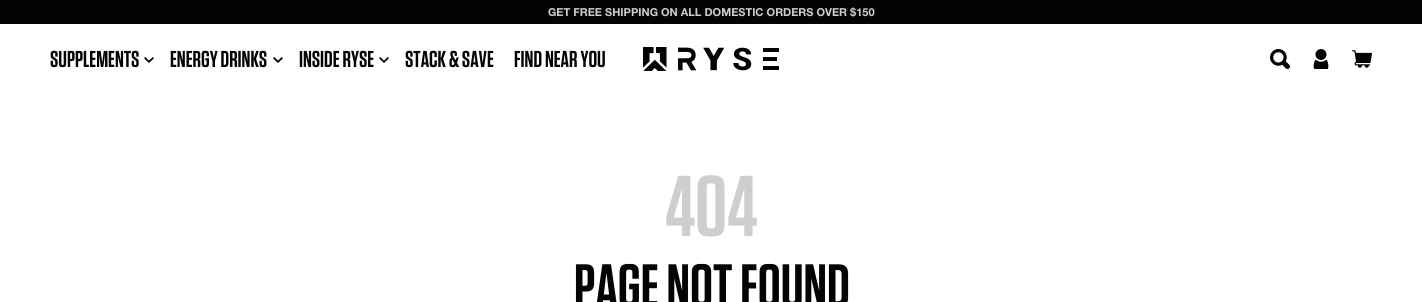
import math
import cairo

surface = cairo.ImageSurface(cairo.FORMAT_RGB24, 1422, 302)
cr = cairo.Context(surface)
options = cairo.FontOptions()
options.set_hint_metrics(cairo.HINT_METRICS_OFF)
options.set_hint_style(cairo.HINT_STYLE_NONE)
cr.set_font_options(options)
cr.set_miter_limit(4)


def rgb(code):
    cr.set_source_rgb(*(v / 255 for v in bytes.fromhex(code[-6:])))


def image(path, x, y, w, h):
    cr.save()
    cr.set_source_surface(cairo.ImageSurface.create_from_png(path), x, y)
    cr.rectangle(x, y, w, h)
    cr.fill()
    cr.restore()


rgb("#ffffff")
cr.paint()
rgb("#040404")
cr.rectangle(0, 0, 1422, 24)
cr.fill()
image("img/1.png", 144, 57, 10, 6)
image("img/1.png", 273, 57, 10, 6)
image("img/1.png", 379, 57, 10, 6)
image("img/2.png", 643, 47, 24, 24)
image("img/3.png", 678, 47, 101, 24)
image("img/4.png", 1270, 49, 20, 20)
image("img/5.png", 1313, 49, 16, 20)
image("img/6.png", 1352, 50, 20, 18)
cr.select_font_face("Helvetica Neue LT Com", cairo.FONT_SLANT_NORMAL, cairo.FONT_WEIGHT_BOLD)
cr.set_font_size(11)
rgb("#cecece")
cr.move_to(548, 16)
cr.show_text("GET FREE SHIPPING ON ALL DOMESTIC ORDERS OVER $150")
cr.select_font_face("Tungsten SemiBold")
cr.set_font_size(23)
rgb("#040404")
for x, y, s in [
    (50, 67, "SUPPLEMENTS"),
    (170, 67, "ENERGY DRINKS"),
    (299, 67, "INSIDE RYSE"),
    (405, 67, "STACK & SAVE"),
    (514, 67, "FIND NEAR YOU"),
]:
    cr.move_to(x, y)
    cr.show_text(s)
cr.set_font_size(86)
rgb("#cecece")
cr.move_to(665, 236)
cr.show_text("404")
cr.set_font_size(61)
rgb("#040404")
cr.move_to(574, 307)
cr.show_text("PAGE NOT FOUND")
surface.write_to_png("page.png")
